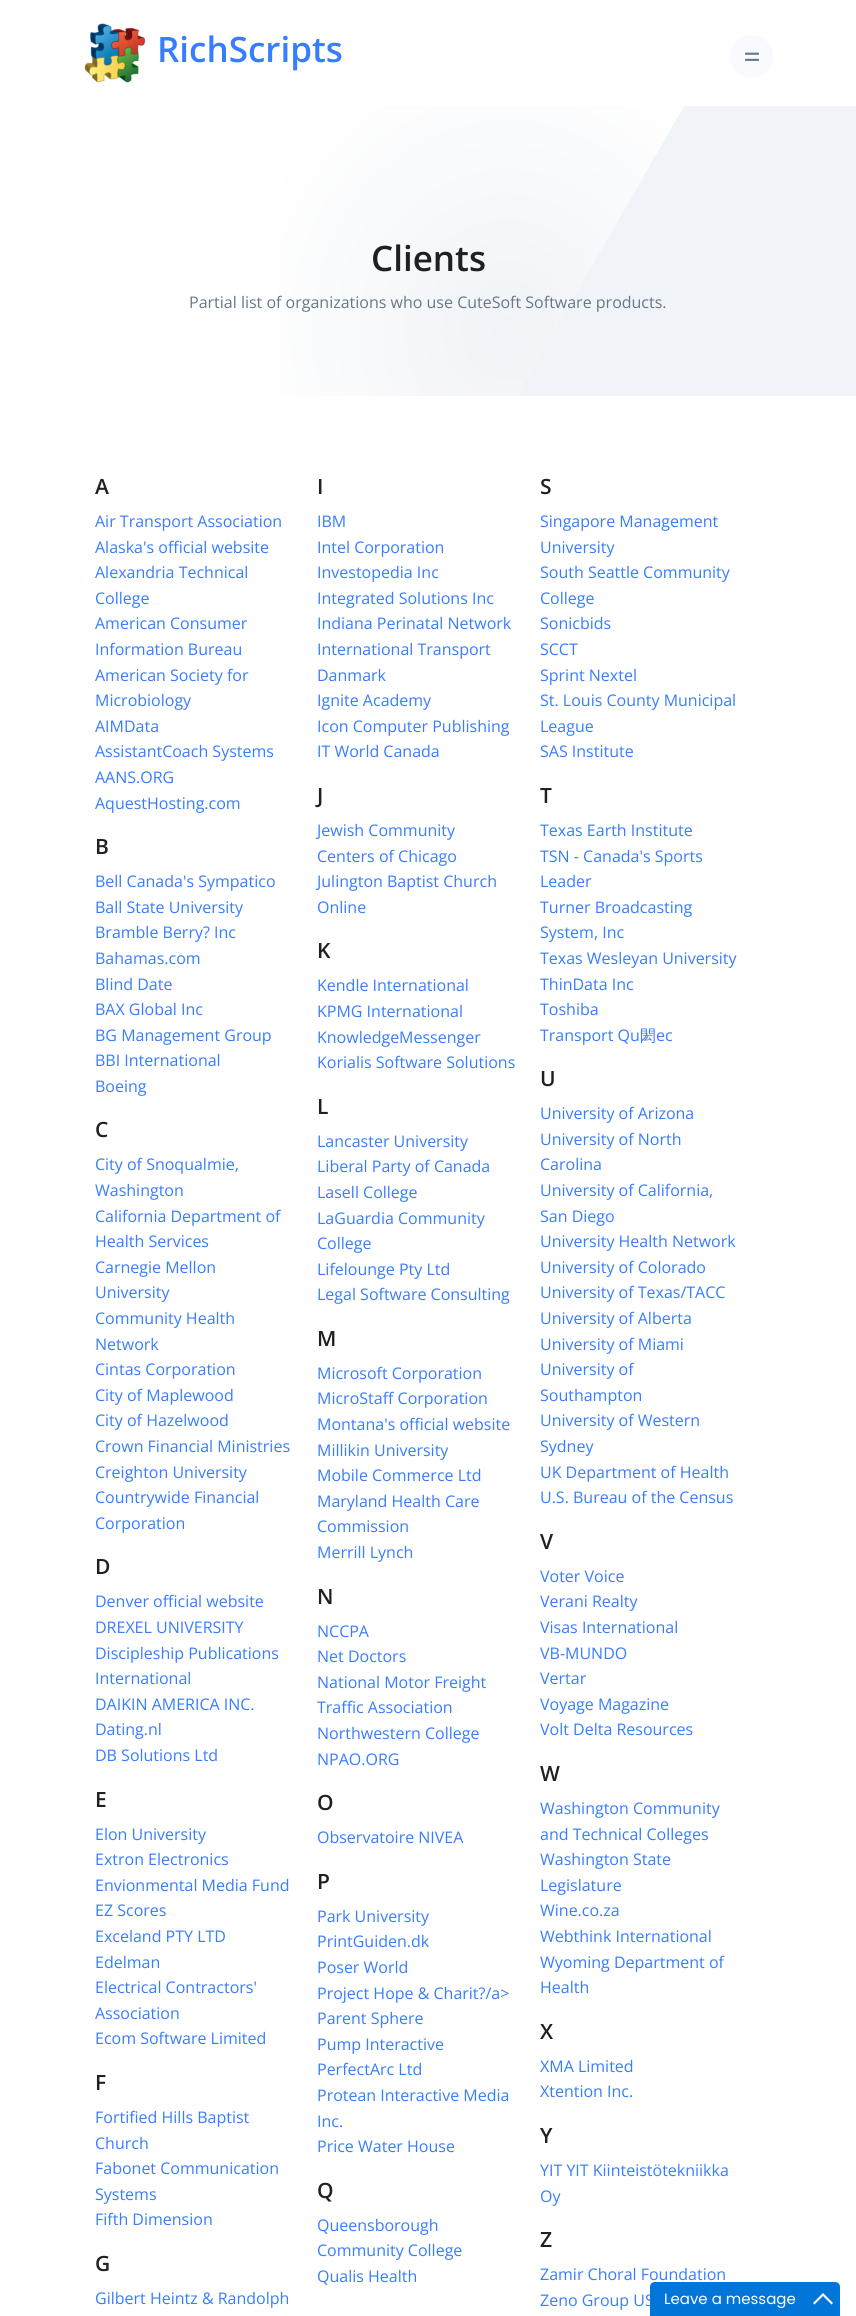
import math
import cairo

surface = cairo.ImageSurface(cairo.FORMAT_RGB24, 856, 2316)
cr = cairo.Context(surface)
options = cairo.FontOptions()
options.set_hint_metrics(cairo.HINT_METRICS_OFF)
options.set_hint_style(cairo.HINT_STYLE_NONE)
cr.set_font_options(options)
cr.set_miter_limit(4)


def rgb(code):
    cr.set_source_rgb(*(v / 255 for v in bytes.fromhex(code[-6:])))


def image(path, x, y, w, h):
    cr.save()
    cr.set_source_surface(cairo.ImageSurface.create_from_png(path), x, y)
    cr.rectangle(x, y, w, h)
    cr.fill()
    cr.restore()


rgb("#ffffff")
cr.paint()
image("img/1.png", 84, 23, 62, 60)
rgb("#f8fafd")
cr.arc(751.5, 56.5, 21.5, 0, 2 * math.pi)
cr.fill()
image("img/2.png", 745, 52, 14, 9)
gradient = cairo.RadialGradient(0, 0, 0, 0, 0, 1)
gradient.set_matrix(cairo.Matrix(1 / 274, 0, 0, 1 / 297, -1 * 507 / 274, -1 * 330 / 297))
gradient.add_color_stop_rgba(0, 0.941, 0.953, 0.969, 1)
gradient.add_color_stop_rgba(1, 1, 1, 1, 1)
cr.set_source(gradient)
cr.rectangle(279, 106, 406, 290)
cr.fill()
cr.save()
cr.rectangle(0, 106, 856, 290)
cr.clip()
rgb("#f0f3f7")
cr.new_path()
cr.move_to(729, 28)
cr.line_to(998, 183)
cr.line_to(773, 572)
cr.line_to(505, 417)
cr.close_path()
cr.fill()
cr.restore()
cr.select_font_face("Open Sans SemiBold")
cr.set_font_size(35)
rgb("#377dff")
cr.move_to(157, 62)
cr.show_text("RichScripts")
rgb("#1e2022")
cr.move_to(371, 271)
cr.show_text("Clients")
cr.select_font_face("Open Sans")
cr.set_font_size(16)
rgb("#677788")
cr.move_to(189, 308)
cr.show_text("Partial list of organizations who use CuteSoft Software products.")
cr.select_font_face("Open Sans SemiBold")
cr.set_font_size(21)
rgb("#1e2022")
cr.move_to(95, 494)
cr.show_text("A")
cr.select_font_face("Open Sans")
cr.set_font_size(16)
rgb("#377dff")
for x, y, s in [
    (95, 527, "Air Transport Association"),
    (95, 553, "Alaska's official website"),
    (95, 578, "Alexandria Technical"),
    (95, 604, "College"),
    (95, 629, "American Consumer"),
    (95, 655, "Information Bureau"),
    (95, 681, "American Society for"),
    (95, 706, "Microbiology"),
    (95, 732, "AIMData"),
    (95, 757, "AssistantCoach Systems"),
    (95, 783, "AANS.ORG"),
    (95, 809, "AquestHosting.com"),
]:
    cr.move_to(x, y)
    cr.show_text(s)
cr.select_font_face("Open Sans SemiBold")
cr.set_font_size(21)
rgb("#1e2022")
cr.move_to(95, 854)
cr.show_text("B")
cr.select_font_face("Open Sans")
cr.set_font_size(16)
rgb("#377dff")
for x, y, s in [
    (95, 887, "Bell Canada's Sympatico"),
    (95, 913, "Ball State University"),
    (95, 938, "Bramble Berry? Inc"),
    (95, 964, "Bahamas.com"),
    (95, 990, "Blind Date"),
    (95, 1015, "BAX Global Inc"),
    (95, 1041, "BG Management Group"),
    (95, 1066, "BBI International"),
    (95, 1092, "Boeing"),
]:
    cr.move_to(x, y)
    cr.show_text(s)
cr.select_font_face("Open Sans SemiBold")
cr.set_font_size(21)
rgb("#1e2022")
cr.move_to(95, 1137)
cr.show_text("C")
cr.select_font_face("Open Sans")
cr.set_font_size(16)
rgb("#377dff")
for x, y, s in [
    (95, 1170, "City of Snoqualmie,"),
    (95, 1196, "Washington"),
    (95, 1222, "California Department of"),
    (95, 1247, "Health Services"),
    (95, 1273, "Carnegie Mellon"),
    (95, 1298, "University"),
    (95, 1324, "Community Health"),
    (95, 1350, "Network"),
    (95, 1375, "Cintas Corporation"),
    (95, 1401, "City of Maplewood"),
    (95, 1426, "City of Hazelwood"),
    (95, 1452, "Crown Financial Ministries"),
    (95, 1478, "Creighton University"),
    (95, 1503, "Countrywide Financial"),
    (95, 1529, "Corporation"),
]:
    cr.move_to(x, y)
    cr.show_text(s)
cr.select_font_face("Open Sans SemiBold")
cr.set_font_size(21)
rgb("#1e2022")
cr.move_to(95, 1574)
cr.show_text("D")
cr.select_font_face("Open Sans")
cr.set_font_size(16)
rgb("#377dff")
for x, y, s in [
    (95, 1607, "Denver official website"),
    (95, 1633, "DREXEL UNIVERSITY"),
    (95, 1659, "Discipleship Publications"),
    (95, 1684, "International"),
    (95, 1710, "DAIKIN AMERICA INC."),
    (95, 1735, "Dating.nl"),
    (95, 1761, "DB Solutions Ltd"),
]:
    cr.move_to(x, y)
    cr.show_text(s)
cr.select_font_face("Open Sans SemiBold")
cr.set_font_size(21)
rgb("#1e2022")
cr.move_to(95, 1807)
cr.show_text("E")
cr.select_font_face("Open Sans")
cr.set_font_size(16)
rgb("#377dff")
for x, y, s in [
    (95, 1840, "Elon University"),
    (95, 1865, "Extron Electronics"),
    (95, 1891, "Envionmental Media Fund"),
    (95, 1916, "EZ Scores"),
    (95, 1942, "Exceland PTY LTD"),
    (95, 1968, "Edelman"),
    (95, 1993, "Electrical Contractors'"),
    (95, 2019, "Association"),
    (95, 2044, "Ecom Software Limited"),
]:
    cr.move_to(x, y)
    cr.show_text(s)
cr.select_font_face("Open Sans SemiBold")
cr.set_font_size(21)
rgb("#1e2022")
cr.move_to(95, 2090)
cr.show_text("F")
cr.select_font_face("Open Sans")
cr.set_font_size(16)
rgb("#377dff")
for x, y, s in [
    (95, 2123, "Fortified Hills Baptist"),
    (95, 2149, "Church"),
    (95, 2174, "Fabonet Communication"),
    (95, 2200, "Systems"),
    (95, 2225, "Fifth Dimension"),
]:
    cr.move_to(x, y)
    cr.show_text(s)
cr.select_font_face("Open Sans SemiBold")
cr.set_font_size(21)
rgb("#1e2022")
cr.move_to(95, 2271)
cr.show_text("G")
cr.select_font_face("Open Sans")
cr.set_font_size(16)
rgb("#377dff")
cr.move_to(95, 2304)
cr.show_text("Gilbert Heintz & Randolph")
cr.select_font_face("Open Sans SemiBold")
cr.set_font_size(21)
rgb("#1e2022")
cr.move_to(317, 494)
cr.show_text("I")
cr.select_font_face("Open Sans")
cr.set_font_size(16)
rgb("#377dff")
for x, y, s in [
    (317, 527, "IBM"),
    (317, 553, "Intel Corporation"),
    (317, 578, "Investopedia Inc"),
    (317, 604, "Integrated Solutions Inc"),
    (317, 629, "Indiana Perinatal Network"),
    (317, 655, "International Transport"),
    (317, 681, "Danmark"),
    (317, 706, "Ignite Academy"),
    (317, 732, "Icon Computer Publishing"),
    (317, 757, "IT World Canada"),
]:
    cr.move_to(x, y)
    cr.show_text(s)
cr.select_font_face("Open Sans SemiBold")
cr.set_font_size(21)
rgb("#1e2022")
cr.move_to(317, 803)
cr.show_text("J")
cr.select_font_face("Open Sans")
cr.set_font_size(16)
rgb("#377dff")
for x, y, s in [
    (317, 836, "Jewish Community"),
    (317, 862, "Centers of Chicago"),
    (317, 887, "Julington Baptist Church"),
    (317, 913, "Online"),
]:
    cr.move_to(x, y)
    cr.show_text(s)
cr.select_font_face("Open Sans SemiBold")
cr.set_font_size(21)
rgb("#1e2022")
cr.move_to(317, 958)
cr.show_text("K")
cr.select_font_face("Open Sans")
cr.set_font_size(16)
rgb("#377dff")
for x, y, s in [
    (317, 991, "Kendle International"),
    (317, 1017, "KPMG International"),
    (317, 1043, "KnowledgeMessenger"),
    (317, 1068, "Korialis Software Solutions"),
]:
    cr.move_to(x, y)
    cr.show_text(s)
cr.select_font_face("Open Sans SemiBold")
cr.set_font_size(21)
rgb("#1e2022")
cr.move_to(317, 1114)
cr.show_text("L")
cr.select_font_face("Open Sans")
cr.set_font_size(16)
rgb("#377dff")
for x, y, s in [
    (317, 1147, "Lancaster University"),
    (317, 1172, "Liberal Party of Canada"),
    (317, 1198, "Lasell College"),
    (317, 1224, "LaGuardia Community"),
    (317, 1249, "College"),
    (317, 1275, "Lifelounge Pty Ltd"),
    (317, 1300, "Legal Software Consulting"),
]:
    cr.move_to(x, y)
    cr.show_text(s)
cr.select_font_face("Open Sans SemiBold")
cr.set_font_size(21)
rgb("#1e2022")
cr.move_to(317, 1346)
cr.show_text("M")
cr.select_font_face("Open Sans")
cr.set_font_size(16)
rgb("#377dff")
for x, y, s in [
    (317, 1379, "Microsoft Corporation"),
    (317, 1404, "MicroStaff Corporation"),
    (317, 1430, "Montana's official website"),
    (317, 1456, "Millikin University"),
    (317, 1481, "Mobile Commerce Ltd"),
    (317, 1507, "Maryland Health Care"),
    (317, 1532, "Commission"),
    (317, 1558, "Merrill Lynch"),
]:
    cr.move_to(x, y)
    cr.show_text(s)
cr.select_font_face("Open Sans SemiBold")
cr.set_font_size(21)
rgb("#1e2022")
cr.move_to(317, 1604)
cr.show_text("N")
cr.select_font_face("Open Sans")
cr.set_font_size(16)
rgb("#377dff")
for x, y, s in [
    (317, 1637, "NCCPA"),
    (317, 1662, "Net Doctors"),
    (317, 1688, "National Motor Freight"),
    (317, 1713, "Traffic Association"),
    (317, 1739, "Northwestern College"),
    (317, 1765, "NPAO.ORG"),
]:
    cr.move_to(x, y)
    cr.show_text(s)
cr.select_font_face("Open Sans SemiBold")
cr.set_font_size(21)
rgb("#1e2022")
cr.move_to(317, 1810)
cr.show_text("O")
cr.select_font_face("Open Sans")
cr.set_font_size(16)
rgb("#377dff")
cr.move_to(317, 1843)
cr.show_text("Observatoire NIVEA")
cr.select_font_face("Open Sans SemiBold")
cr.set_font_size(21)
rgb("#1e2022")
cr.move_to(317, 1889)
cr.show_text("P")
cr.select_font_face("Open Sans")
cr.set_font_size(16)
rgb("#377dff")
for x, y, s in [
    (317, 1922, "Park University"),
    (317, 1947, "PrintGuiden.dk"),
    (317, 1973, "Poser World"),
    (317, 1999, "Project Hope & Charit?/a>"),
    (317, 2024, "Parent Sphere"),
    (317, 2050, "Pump Interactive"),
    (317, 2075, "PerfectArc Ltd"),
    (317, 2101, "Protean Interactive Media"),
    (317, 2127, "Inc."),
    (317, 2152, "Price Water House"),
]:
    cr.move_to(x, y)
    cr.show_text(s)
cr.select_font_face("Open Sans SemiBold")
cr.set_font_size(21)
rgb("#1e2022")
cr.move_to(317, 2198)
cr.show_text("Q")
cr.select_font_face("Open Sans")
cr.set_font_size(16)
rgb("#377dff")
for x, y, s in [
    (317, 2231, "Queensborough"),
    (317, 2256, "Community College"),
    (317, 2282, "Qualis Health"),
]:
    cr.move_to(x, y)
    cr.show_text(s)
cr.select_font_face("Open Sans SemiBold")
cr.set_font_size(21)
rgb("#1e2022")
cr.move_to(540, 494)
cr.show_text("S")
cr.select_font_face("Open Sans")
cr.set_font_size(16)
rgb("#377dff")
for x, y, s in [
    (540, 527, "Singapore Management"),
    (540, 553, "University"),
    (540, 578, "South Seattle Community"),
    (540, 604, "College"),
    (540, 629, "Sonicbids"),
    (540, 655, "SCCT"),
    (540, 681, "Sprint Nextel"),
    (540, 706, "St. Louis County Municipal"),
    (540, 732, "League"),
    (540, 757, "SAS Institute"),
]:
    cr.move_to(x, y)
    cr.show_text(s)
cr.select_font_face("Open Sans SemiBold")
cr.set_font_size(21)
rgb("#1e2022")
cr.move_to(540, 803)
cr.show_text("T")
cr.select_font_face("Open Sans")
cr.set_font_size(16)
rgb("#377dff")
for x, y, s in [
    (540, 836, "Texas Earth Institute"),
    (540, 862, "TSN - Canada's Sports"),
    (540, 887, "Leader"),
    (540, 913, "Turner Broadcasting"),
    (540, 938, "System, Inc"),
    (540, 964, "Texas Wesleyan University"),
    (540, 990, "ThinData Inc"),
    (540, 1015, "Toshiba"),
    (540, 1041, "Transport Qu"),
]:
    cr.move_to(x, y)
    cr.show_text(s)
cr.select_font_face("WenQuanYi Zen Hei Medium")
cr.move_to(640, 1041)
cr.show_text("閎")
cr.select_font_face("Open Sans")
cr.move_to(656, 1041)
cr.show_text("ec")
cr.select_font_face("Open Sans SemiBold")
cr.set_font_size(21)
rgb("#1e2022")
cr.move_to(540, 1086)
cr.show_text("U")
cr.select_font_face("Open Sans")
cr.set_font_size(16)
rgb("#377dff")
for x, y, s in [
    (540, 1119, "University of Arizona"),
    (540, 1145, "University of North"),
    (540, 1170, "Carolina"),
    (540, 1196, "University of California,"),
    (540, 1222, "San Diego"),
    (540, 1247, "University Health Network"),
    (540, 1273, "University of Colorado"),
    (540, 1298, "University of Texas/TACC"),
    (540, 1324, "University of Alberta"),
    (540, 1350, "University of Miami"),
    (540, 1375, "University of"),
    (540, 1401, "Southampton"),
    (540, 1426, "University of Western"),
    (540, 1452, "Sydney"),
    (540, 1478, "UK Department of Health"),
    (540, 1503, "U.S. Bureau of the Census"),
]:
    cr.move_to(x, y)
    cr.show_text(s)
cr.select_font_face("Open Sans SemiBold")
cr.set_font_size(21)
rgb("#1e2022")
cr.move_to(540, 1549)
cr.show_text("V")
cr.select_font_face("Open Sans")
cr.set_font_size(16)
rgb("#377dff")
for x, y, s in [
    (540, 1582, "Voter Voice"),
    (540, 1607, "Verani Realty"),
    (540, 1633, "Visas International"),
    (540, 1659, "VB-MUNDO"),
    (540, 1684, "Vertar"),
    (540, 1710, "Voyage Magazine"),
    (540, 1735, "Volt Delta Resources"),
]:
    cr.move_to(x, y)
    cr.show_text(s)
cr.select_font_face("Open Sans SemiBold")
cr.set_font_size(21)
rgb("#1e2022")
cr.move_to(540, 1781)
cr.show_text("W")
cr.select_font_face("Open Sans")
cr.set_font_size(16)
rgb("#377dff")
for x, y, s in [
    (540, 1814, "Washington Community"),
    (540, 1840, "and Technical Colleges"),
    (540, 1865, "Washington State"),
    (540, 1891, "Legislature"),
    (540, 1916, "Wine.co.za"),
    (540, 1942, "Webthink International"),
    (540, 1968, "Wyoming Department of"),
    (540, 1993, "Health"),
]:
    cr.move_to(x, y)
    cr.show_text(s)
cr.select_font_face("Open Sans SemiBold")
cr.set_font_size(21)
rgb("#1e2022")
cr.move_to(540, 2039)
cr.show_text("X")
cr.select_font_face("Open Sans")
cr.set_font_size(16)
rgb("#377dff")
cr.move_to(540, 2072)
cr.show_text("XMA Limited")
cr.move_to(540, 2097)
cr.show_text("Xtention Inc.")
cr.select_font_face("Open Sans SemiBold")
cr.set_font_size(21)
rgb("#1e2022")
cr.move_to(540, 2143)
cr.show_text("Y")
cr.select_font_face("Open Sans")
cr.set_font_size(16)
rgb("#377dff")
cr.move_to(540, 2176)
cr.show_text("YIT YIT Kiinteistötekniikka")
cr.move_to(540, 2202)
cr.show_text("Oy")
cr.select_font_face("Open Sans SemiBold")
cr.set_font_size(21)
rgb("#1e2022")
cr.move_to(540, 2247)
cr.show_text("Z")
cr.select_font_face("Open Sans")
cr.set_font_size(16)
rgb("#377dff")
cr.move_to(540, 2280)
cr.show_text("Zamir Choral Foundation")
cr.move_to(540, 2306)
cr.show_text("Zeno Group US")
rgb("#0275d8")
cr.new_path()
cr.move_to(655, 2282)
cr.line_to(835, 2282)
cr.curve_to(838, 2282, 840, 2284, 840, 2287)
cr.line_to(840, 2316)
cr.line_to(650, 2316)
cr.line_to(650, 2287)
cr.curve_to(650, 2284, 652, 2282, 655, 2282)
cr.close_path()
cr.fill()
cr.select_font_face("Poppins")
cr.set_font_size(15)
rgb("#ffffff")
cr.move_to(664, 2304)
cr.show_text("Leave a message")
cr.new_path()
cr.move_to(823, 2293)
cr.line_to(833, 2303)
cr.line_to(831.5, 2304.5)
cr.line_to(823, 2296)
cr.line_to(814.5, 2304.5)
cr.line_to(813, 2303)
cr.close_path()
cr.fill()
surface.write_to_png("page.png")
